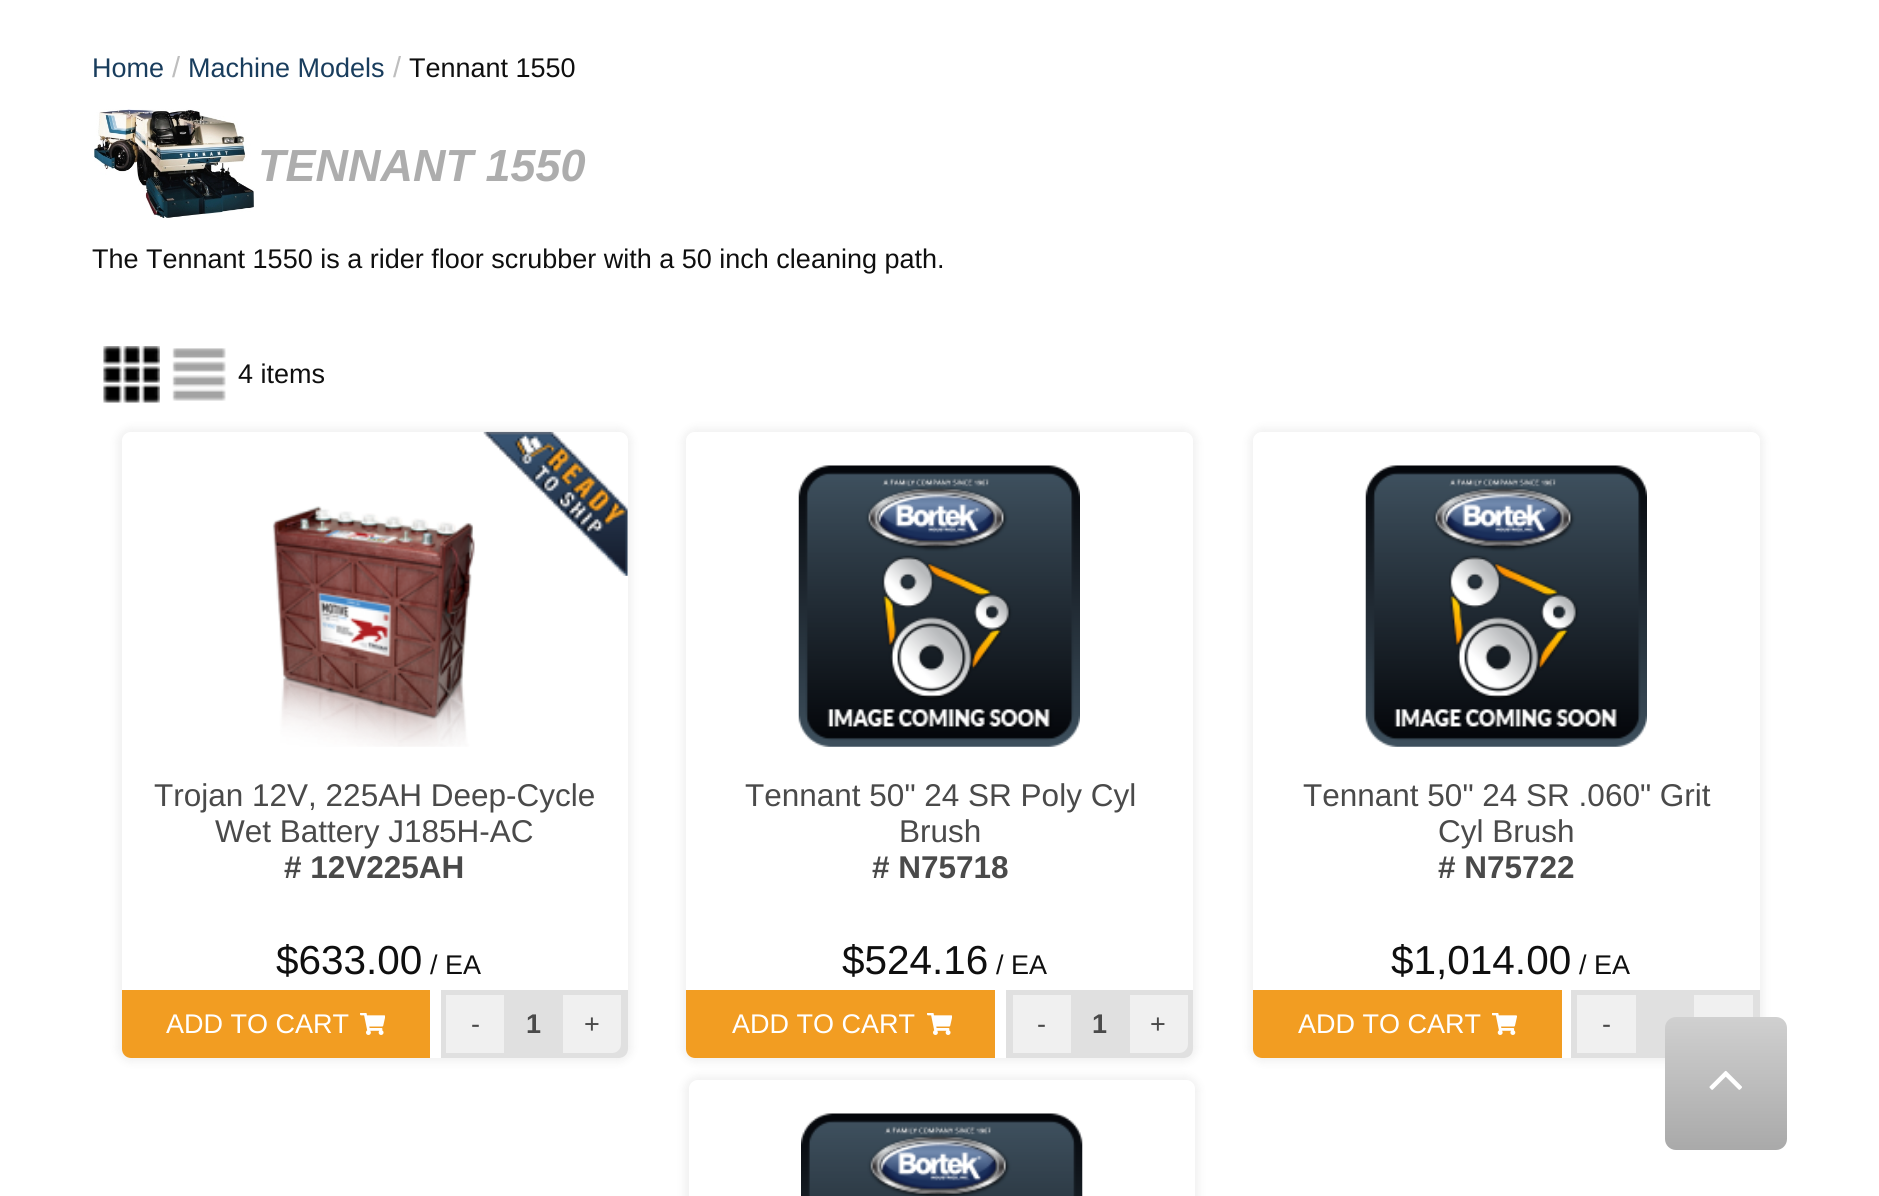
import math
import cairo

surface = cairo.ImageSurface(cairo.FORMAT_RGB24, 1879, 1196)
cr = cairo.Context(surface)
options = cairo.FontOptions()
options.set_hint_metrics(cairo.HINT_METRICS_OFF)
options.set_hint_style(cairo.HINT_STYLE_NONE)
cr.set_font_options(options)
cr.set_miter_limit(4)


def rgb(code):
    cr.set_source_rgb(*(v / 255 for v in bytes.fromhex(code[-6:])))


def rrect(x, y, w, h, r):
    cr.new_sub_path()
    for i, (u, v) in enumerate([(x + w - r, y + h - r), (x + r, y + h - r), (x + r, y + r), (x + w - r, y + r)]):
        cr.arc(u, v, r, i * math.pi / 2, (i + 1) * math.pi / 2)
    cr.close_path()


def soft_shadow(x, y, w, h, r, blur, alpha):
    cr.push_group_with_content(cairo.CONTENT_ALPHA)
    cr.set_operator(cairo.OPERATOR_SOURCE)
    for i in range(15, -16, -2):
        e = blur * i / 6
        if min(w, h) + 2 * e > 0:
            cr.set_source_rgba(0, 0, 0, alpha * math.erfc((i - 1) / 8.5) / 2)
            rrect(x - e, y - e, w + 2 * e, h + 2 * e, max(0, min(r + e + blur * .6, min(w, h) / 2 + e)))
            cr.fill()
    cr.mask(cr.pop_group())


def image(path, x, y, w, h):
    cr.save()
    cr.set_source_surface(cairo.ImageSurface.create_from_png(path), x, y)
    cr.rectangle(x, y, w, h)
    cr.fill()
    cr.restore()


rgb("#ffffff")
cr.paint()
image("img/1.png", 94, 109, 160, 109)
image("img/2.png", 103, 346, 57, 57)
image("img/3.png", 172, 348, 54, 53)
cr.save()
cr.set_fill_rule(cairo.FILL_RULE_EVEN_ODD)
cr.new_path()
cr.move_to(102, 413)
cr.line_to(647, 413)
cr.line_to(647, 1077)
cr.line_to(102, 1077)
cr.close_path()
cr.move_to(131, 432)
cr.line_to(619, 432)
cr.curve_to(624, 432, 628, 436, 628, 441)
cr.line_to(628, 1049)
cr.curve_to(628, 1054, 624, 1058, 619, 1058)
cr.line_to(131, 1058)
cr.curve_to(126, 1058, 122, 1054, 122, 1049)
cr.line_to(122, 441)
cr.curve_to(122, 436, 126, 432, 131, 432)
cr.close_path()
cr.clip()
rgb("#000000")
soft_shadow(117, 428, 515, 634, 14, 4.5, 0.06)
cr.restore()
image("img/4.png", 272, 506, 203, 241)
image("img/5.png", 483, 431, 145, 145)
rgb("#f29d22")
cr.new_path()
cr.move_to(122, 990)
cr.line_to(430, 990)
cr.line_to(430, 1058)
cr.line_to(131, 1058)
cr.curve_to(126, 1058, 122, 1054, 122, 1049)
cr.close_path()
cr.fill()
image("img/6.png", 360, 1013, 25, 22)
rgb("#e0e0e0")
cr.new_path()
cr.move_to(441, 990)
cr.line_to(628, 990)
cr.line_to(628, 1049)
cr.curve_to(628, 1054, 624, 1058, 619, 1058)
cr.line_to(441, 1058)
cr.close_path()
cr.fill()
rgb("#f0f0f0")
cr.rectangle(446, 995, 58, 58)
cr.fill()
cr.new_path()
cr.move_to(563, 995)
cr.line_to(621, 995)
cr.line_to(621, 1044)
cr.curve_to(621, 1049, 617, 1053, 612, 1053)
cr.line_to(563, 1053)
cr.close_path()
cr.fill()
cr.save()
cr.set_fill_rule(cairo.FILL_RULE_EVEN_ODD)
cr.new_path()
cr.move_to(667, 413)
cr.line_to(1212, 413)
cr.line_to(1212, 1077)
cr.line_to(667, 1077)
cr.close_path()
cr.move_to(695, 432)
cr.line_to(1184, 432)
cr.curve_to(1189, 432, 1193, 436, 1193, 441)
cr.line_to(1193, 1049)
cr.curve_to(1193, 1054, 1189, 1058, 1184, 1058)
cr.line_to(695, 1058)
cr.curve_to(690, 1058, 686, 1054, 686, 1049)
cr.line_to(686, 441)
cr.curve_to(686, 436, 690, 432, 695, 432)
cr.close_path()
cr.clip()
rgb("#000000")
soft_shadow(682, 428, 515, 634, 14, 4.5, 0.06)
cr.restore()
image("img/7.png", 798, 465, 282, 282)
rgb("#f29d22")
cr.new_path()
cr.move_to(686, 990)
cr.line_to(995, 990)
cr.line_to(995, 1058)
cr.line_to(695, 1058)
cr.curve_to(690, 1058, 686, 1054, 686, 1049)
cr.close_path()
cr.fill()
image("img/6.png", 927, 1013, 25, 22)
rgb("#e0e0e0")
cr.new_path()
cr.move_to(1006, 990)
cr.line_to(1193, 990)
cr.line_to(1193, 1049)
cr.curve_to(1193, 1054, 1189, 1058, 1184, 1058)
cr.line_to(1006, 1058)
cr.close_path()
cr.fill()
rgb("#f0f0f0")
cr.rectangle(1013, 995, 58, 58)
cr.fill()
cr.new_path()
cr.move_to(1130, 995)
cr.line_to(1188, 995)
cr.line_to(1188, 1044)
cr.curve_to(1188, 1049, 1184, 1053, 1179, 1053)
cr.line_to(1130, 1053)
cr.close_path()
cr.fill()
cr.save()
cr.set_fill_rule(cairo.FILL_RULE_EVEN_ODD)
cr.new_path()
cr.move_to(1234, 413)
cr.line_to(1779, 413)
cr.line_to(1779, 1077)
cr.line_to(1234, 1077)
cr.close_path()
cr.move_to(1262, 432)
cr.line_to(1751, 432)
cr.curve_to(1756, 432, 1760, 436, 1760, 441)
cr.line_to(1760, 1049)
cr.curve_to(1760, 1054, 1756, 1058, 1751, 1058)
cr.line_to(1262, 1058)
cr.curve_to(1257, 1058, 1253, 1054, 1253, 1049)
cr.line_to(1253, 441)
cr.curve_to(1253, 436, 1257, 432, 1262, 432)
cr.close_path()
cr.clip()
rgb("#000000")
soft_shadow(1249, 428, 515, 634, 14, 4.5, 0.06)
cr.restore()
image("img/8.png", 1365, 465, 282, 282)
rgb("#f29d22")
cr.new_path()
cr.move_to(1253, 990)
cr.line_to(1562, 990)
cr.line_to(1562, 1058)
cr.line_to(1262, 1058)
cr.curve_to(1257, 1058, 1253, 1054, 1253, 1049)
cr.close_path()
cr.fill()
image("img/9.png", 1492, 1013, 25, 22)
for x, y, w, h, color in [
    (1571, 990, 189, 68, "#e0e0e0"),
    (1694, 995, 59, 22, "#f0f0f0"),
    (1577, 995, 59, 58, "#f0f0f0"),
]:
    rgb(color)
    cr.rectangle(x, y, w, h)
    cr.fill()
cr.save()
cr.set_fill_rule(cairo.FILL_RULE_EVEN_ODD)
cr.new_path()
cr.move_to(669, 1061)
cr.line_to(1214, 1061)
cr.line_to(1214, 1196)
cr.line_to(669, 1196)
cr.close_path()
cr.move_to(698, 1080)
cr.line_to(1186, 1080)
cr.curve_to(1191, 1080, 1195, 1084, 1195, 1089)
cr.line_to(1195, 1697)
cr.curve_to(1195, 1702, 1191, 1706, 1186, 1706)
cr.line_to(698, 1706)
cr.curve_to(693, 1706, 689, 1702, 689, 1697)
cr.line_to(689, 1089)
cr.curve_to(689, 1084, 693, 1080, 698, 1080)
cr.close_path()
cr.clip()
rgb("#000000")
soft_shadow(684, 1076, 515, 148, 14, 4.5, 0.06)
cr.restore()
image("img/10.png", 801, 1113, 282, 83)
gradient = cairo.LinearGradient(1726, 1017, 1726, 1150)
gradient.add_color_stop_rgba(0, 0.816, 0.816, 0.816, 1)
gradient.add_color_stop_rgba(1, 0.663, 0.663, 0.663, 1)
cr.set_source(gradient)
rrect(1665, 1017, 122, 133, 11)
cr.fill()
image("img/11.png", 1709, 1070, 33, 20)
cr.select_font_face("Liberation Sans")
cr.set_font_size(27)
rgb("#193d5d")
cr.move_to(92, 77)
cr.show_text("Home")
cr.set_font_size(29)
rgb("#bebebe")
cr.move_to(172, 77)
cr.show_text("/")
cr.set_font_size(27)
rgb("#193d5d")
cr.move_to(188, 77)
cr.show_text("Machine Models")
cr.set_font_size(29)
rgb("#bebebe")
cr.move_to(393, 77)
cr.show_text("/")
cr.set_font_size(27)
rgb("#0f0f0f")
cr.move_to(409, 77)
cr.show_text("Tennant 1550")
cr.select_font_face("Liberation Sans", cairo.FONT_SLANT_ITALIC, cairo.FONT_WEIGHT_BOLD)
cr.set_font_size(45)
rgb("#adadad")
cr.move_to(258, 181)
cr.show_text("TENNANT 1550")
cr.select_font_face("Liberation Sans")
cr.set_font_size(27)
rgb("#0f0f0f")
cr.move_to(92, 268)
cr.show_text("The Tennant 1550 is a rider floor scrubber with a 50 inch cleaning path.")
cr.move_to(238, 383)
cr.show_text("4 items")
cr.set_font_size(31.5)
rgb("#4a4a4a")
cr.move_to(154, 806)
cr.show_text("Trojan 12V, 225AH Deep-Cycle")
cr.move_to(215, 842)
cr.show_text("Wet Battery J185H-AC")
cr.select_font_face("Liberation Sans", cairo.FONT_SLANT_NORMAL, cairo.FONT_WEIGHT_BOLD)
cr.move_to(284, 878)
cr.show_text("# 12V225AH")
cr.select_font_face("Liberation Sans")
cr.set_font_size(40.5)
rgb("#0f0f0f")
cr.move_to(276, 974)
cr.show_text("$633.00")
cr.set_font_size(27)
cr.move_to(430, 974)
cr.show_text("/ EA")
rgb("#ffffff")
cr.move_to(166, 1033)
cr.show_text("ADD TO CART")
rgb("#4a4a4a")
cr.move_to(471, 1033)
cr.show_text("-")
cr.select_font_face("Liberation Sans", cairo.FONT_SLANT_NORMAL, cairo.FONT_WEIGHT_BOLD)
cr.move_to(526, 1033)
cr.show_text("1")
cr.select_font_face("Liberation Sans")
cr.move_to(584, 1033)
cr.show_text("+")
cr.set_font_size(31.5)
cr.move_to(745, 806)
cr.show_text("Tennant 50\" 24 SR Poly Cyl")
cr.move_to(899, 842)
cr.show_text("Brush")
cr.select_font_face("Liberation Sans", cairo.FONT_SLANT_NORMAL, cairo.FONT_WEIGHT_BOLD)
cr.move_to(872, 878)
cr.show_text("# N75718")
cr.select_font_face("Liberation Sans")
cr.set_font_size(40.5)
rgb("#0f0f0f")
cr.move_to(842, 974)
cr.show_text("$524.16")
cr.set_font_size(27)
cr.move_to(996, 974)
cr.show_text("/ EA")
rgb("#ffffff")
cr.move_to(732, 1033)
cr.show_text("ADD TO CART")
rgb("#4a4a4a")
cr.move_to(1037, 1033)
cr.show_text("-")
cr.select_font_face("Liberation Sans", cairo.FONT_SLANT_NORMAL, cairo.FONT_WEIGHT_BOLD)
cr.move_to(1092, 1033)
cr.show_text("1")
cr.select_font_face("Liberation Sans")
cr.move_to(1150, 1033)
cr.show_text("+")
cr.set_font_size(31.5)
cr.move_to(1303, 806)
cr.show_text("Tennant 50\" 24 SR .060\" Grit")
cr.move_to(1438, 842)
cr.show_text("Cyl Brush")
cr.select_font_face("Liberation Sans", cairo.FONT_SLANT_NORMAL, cairo.FONT_WEIGHT_BOLD)
cr.move_to(1438, 878)
cr.show_text("# N75722")
cr.select_font_face("Liberation Sans")
cr.set_font_size(40.5)
rgb("#0f0f0f")
cr.move_to(1391, 974)
cr.show_text("$1,014.00")
cr.set_font_size(27)
cr.move_to(1579, 974)
cr.show_text("/ EA")
rgb("#ffffff")
cr.move_to(1298, 1033)
cr.show_text("ADD TO CART")
rgb("#4a4a4a")
cr.move_to(1602, 1033)
cr.show_text("-")
surface.write_to_png("page.png")
